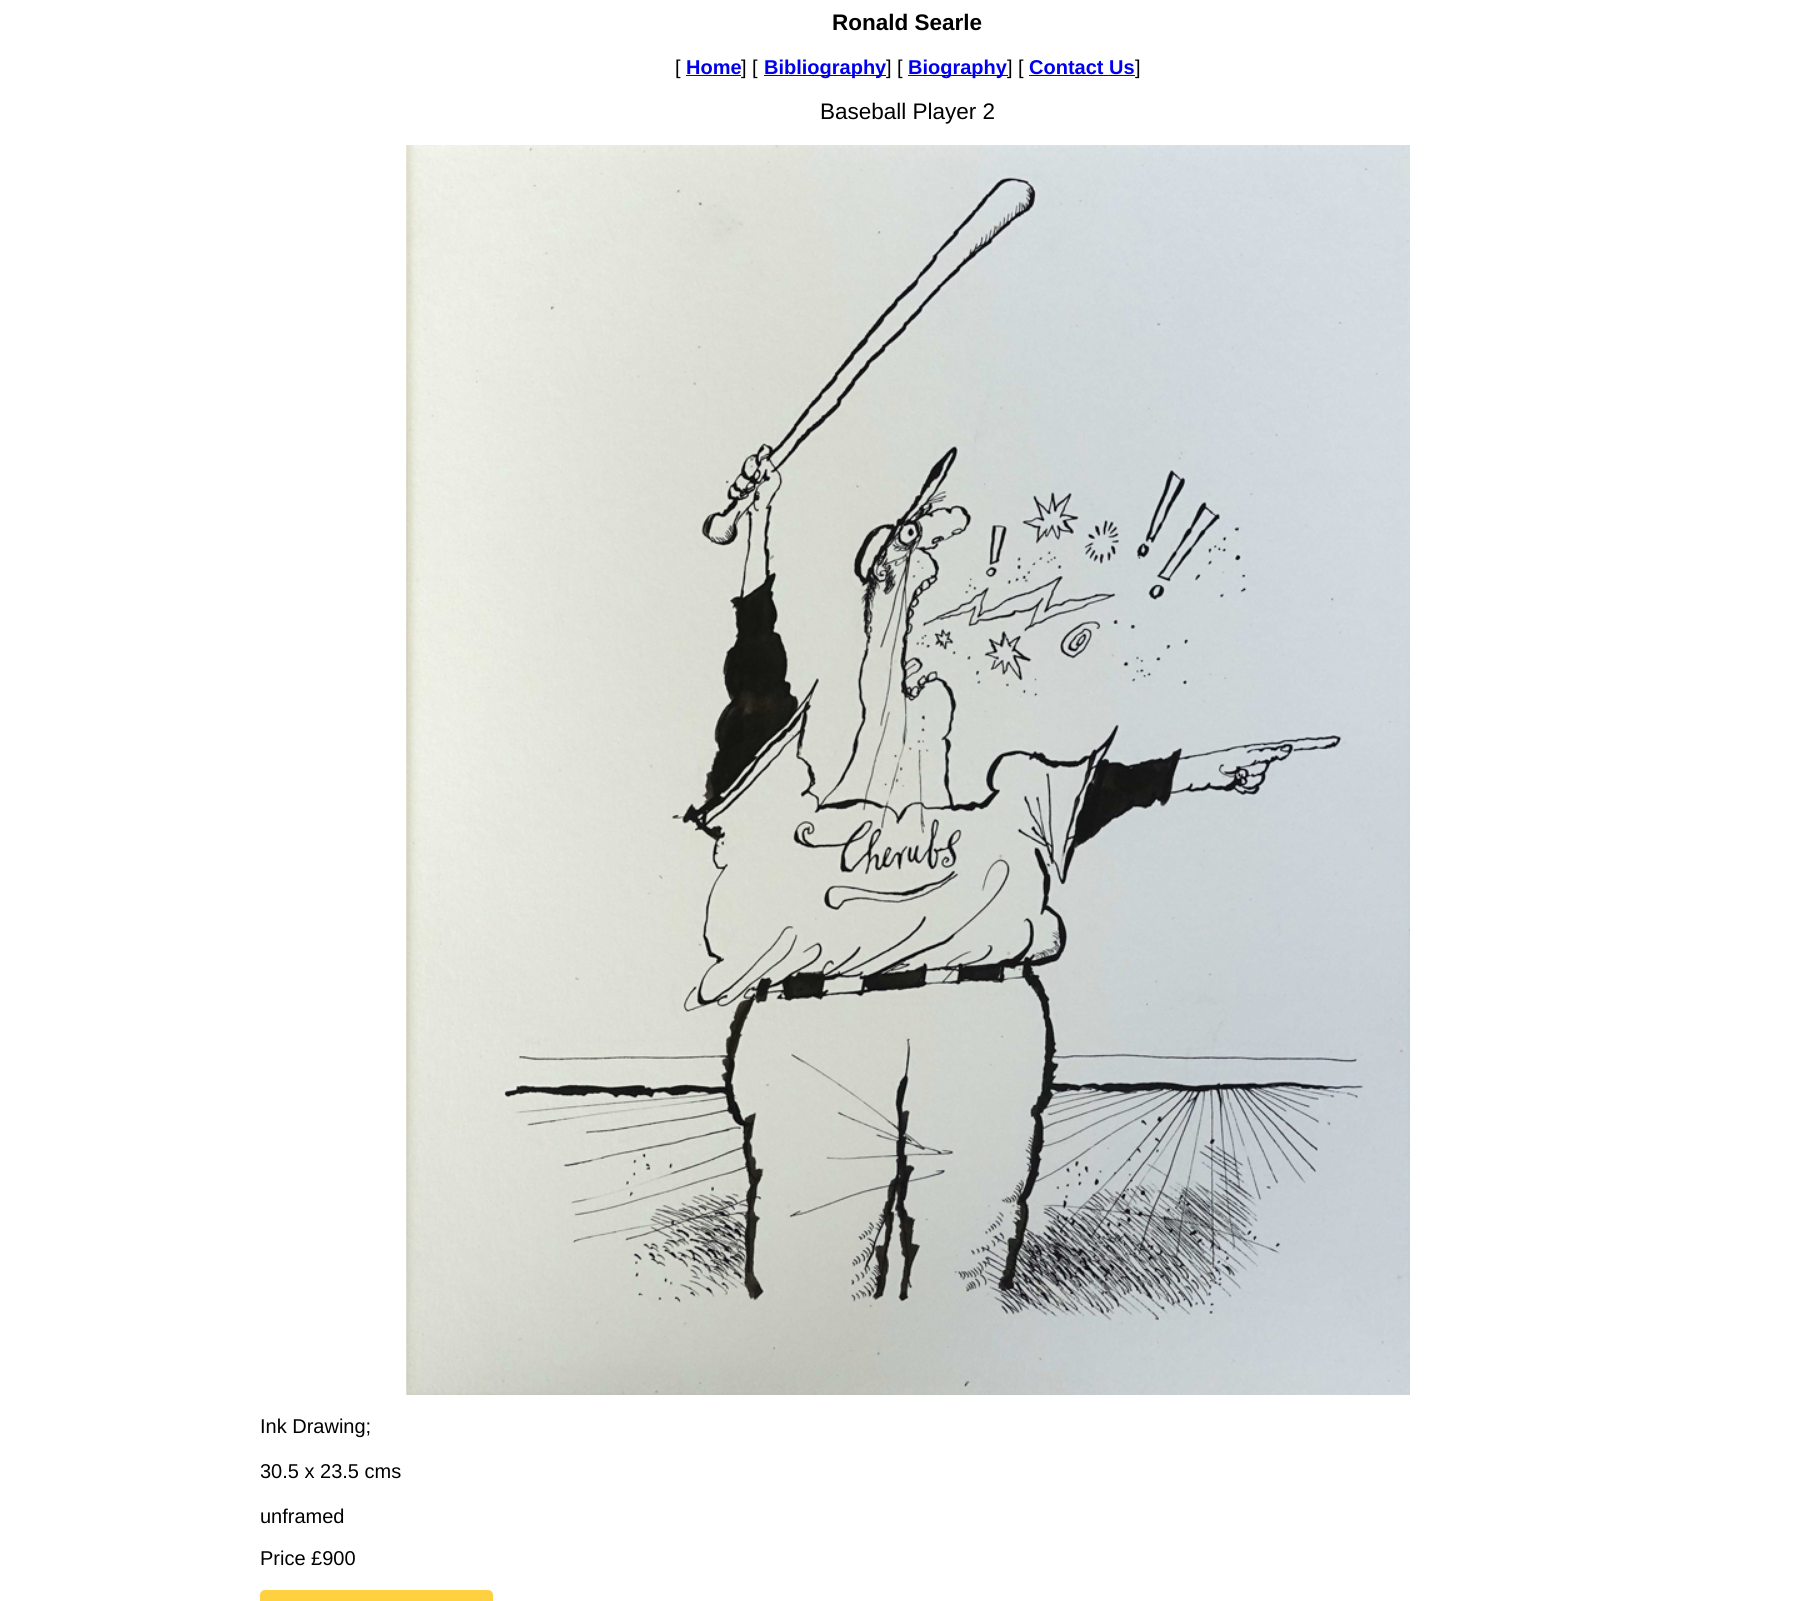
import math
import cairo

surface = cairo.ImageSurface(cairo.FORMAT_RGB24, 1814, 1601)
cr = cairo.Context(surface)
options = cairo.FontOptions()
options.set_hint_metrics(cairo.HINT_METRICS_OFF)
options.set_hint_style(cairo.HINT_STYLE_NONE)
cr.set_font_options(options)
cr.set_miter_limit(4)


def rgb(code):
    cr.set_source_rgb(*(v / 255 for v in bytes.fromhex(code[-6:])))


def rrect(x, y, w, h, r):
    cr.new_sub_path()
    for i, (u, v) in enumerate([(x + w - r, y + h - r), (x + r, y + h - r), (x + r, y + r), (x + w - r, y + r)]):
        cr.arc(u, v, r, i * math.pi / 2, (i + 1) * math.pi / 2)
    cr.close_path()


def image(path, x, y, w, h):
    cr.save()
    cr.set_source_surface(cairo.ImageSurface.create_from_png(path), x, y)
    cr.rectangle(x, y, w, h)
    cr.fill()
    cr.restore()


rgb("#ffffff")
cr.paint()
for x, y, w, h, color in [
    (686, 75, 55, 1, "#0000ee"),
    (764, 75, 122, 1, "#0000ee"),
    (908, 75, 100, 1, "#0000ee"),
    (1029, 75, 106, 1, "#0000ee"),
]:
    rgb(color)
    cr.rectangle(x, y, w, h)
    cr.fill()
image("img/1.png", 406, 145, 1004, 1250)
rgb("#ffd140")
rrect(260, 1590, 233, 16, 5)
cr.fill()
cr.select_font_face("Liberation Sans", cairo.FONT_SLANT_NORMAL, cairo.FONT_WEIGHT_BOLD)
cr.set_font_size(22.5)
rgb("#000000")
cr.move_to(832, 30)
cr.show_text("Ronald Searle")
cr.select_font_face("Liberation Sans")
cr.set_font_size(20)
cr.move_to(675, 74)
cr.show_text("[")
cr.select_font_face("Liberation Sans", cairo.FONT_SLANT_NORMAL, cairo.FONT_WEIGHT_BOLD)
rgb("#0000ee")
cr.move_to(686, 74)
cr.show_text("Home")
cr.select_font_face("Liberation Sans")
rgb("#000000")
cr.move_to(741, 74)
cr.show_text("] [")
cr.select_font_face("Liberation Sans", cairo.FONT_SLANT_NORMAL, cairo.FONT_WEIGHT_BOLD)
rgb("#0000ee")
cr.move_to(764, 74)
cr.show_text("Bibliography")
cr.select_font_face("Liberation Sans")
rgb("#000000")
cr.move_to(886, 74)
cr.show_text("] [")
cr.select_font_face("Liberation Sans", cairo.FONT_SLANT_NORMAL, cairo.FONT_WEIGHT_BOLD)
rgb("#0000ee")
cr.move_to(908, 74)
cr.show_text("Biography")
cr.select_font_face("Liberation Sans")
rgb("#000000")
cr.move_to(1007, 74)
cr.show_text("] [")
cr.select_font_face("Liberation Sans", cairo.FONT_SLANT_NORMAL, cairo.FONT_WEIGHT_BOLD)
rgb("#0000ee")
cr.move_to(1029, 74)
cr.show_text("Contact Us")
cr.select_font_face("Liberation Sans")
rgb("#000000")
cr.move_to(1135, 74)
cr.show_text("]")
cr.set_font_size(22.5)
cr.move_to(820, 119)
cr.show_text("Baseball Player 2")
cr.set_font_size(20)
for x, y, s in [
    (260, 1433, "Ink Drawing;"),
    (260, 1478, "30.5 x 23.5 cms"),
    (260, 1523, "unframed"),
    (260, 1565, "Price £900"),
]:
    cr.move_to(x, y)
    cr.show_text(s)
surface.write_to_png("page.png")
